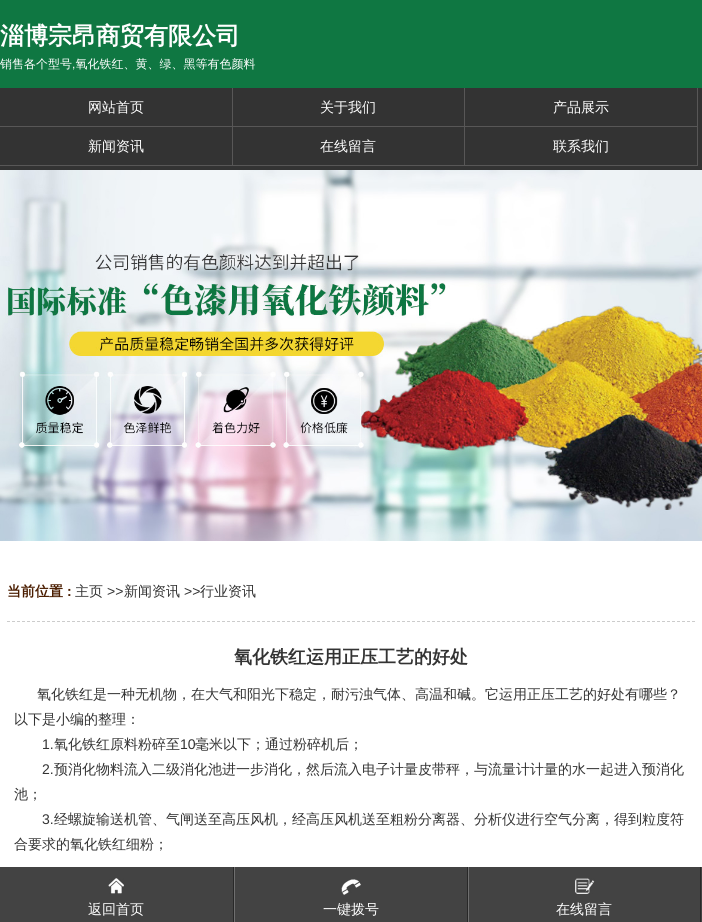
import math
import cairo

surface = cairo.ImageSurface(cairo.FORMAT_RGB24, 702, 922)
cr = cairo.Context(surface)
options = cairo.FontOptions()
options.set_hint_metrics(cairo.HINT_METRICS_OFF)
options.set_hint_style(cairo.HINT_STYLE_NONE)
cr.set_font_options(options)
cr.set_miter_limit(4)


def rgb(code):
    cr.set_source_rgb(*(v / 255 for v in bytes.fromhex(code[-6:])))


def image(path, x, y, w, h):
    cr.save()
    cr.set_source_surface(cairo.ImageSurface.create_from_png(path), x, y)
    cr.rectangle(x, y, w, h)
    cr.fill()
    cr.restore()


rgb("#ffffff")
cr.paint()
for x, y, w, h, color in [
    (0, 0, 702, 88, "#0f7742"),
    (0, 88, 702, 82, "#333333"),
    (232, 88, 1, 78, "#585757"),
    (0, 126, 233, 1, "#585757"),
    (464, 88, 1, 78, "#585757"),
    (233, 126, 232, 1, "#585757"),
    (697, 88, 1, 78, "#585757"),
    (465, 126, 233, 1, "#585757"),
    (0, 165, 698, 1, "#585757"),
]:
    rgb(color)
    cr.rectangle(x, y, w, h)
    cr.fill()
image("img/1.png", 0, 170, 702, 371)
cr.new_path()
cr.move_to(7, 621.5)
cr.line_to(695, 621.5)
rgb("#cccccc")
cr.set_line_width(1)
cr.set_dash([3, 2])
cr.stroke()
rgb("#434343")
cr.rectangle(0, 867, 702, 55)
cr.fill()
rgb("#282828")
cr.rectangle(233, 867, 1, 55)
cr.fill()
image("img/2.png", 108, 878, 16, 16)
cr.rectangle(467, 867, 1, 55)
cr.fill()
rgb("#6f6f6f")
cr.rectangle(234, 867, 1, 55)
cr.fill()
image("img/3.png", 341, 879, 20, 16)
rgb("#282828")
cr.rectangle(700, 867, 1, 55)
cr.fill()
rgb("#6f6f6f")
cr.rectangle(468, 867, 1, 55)
cr.fill()
image("img/4.png", 575, 878, 20, 16)
cr.select_font_face("WenQuanYi Zen Hei", cairo.FONT_SLANT_NORMAL, cairo.FONT_WEIGHT_BOLD)
cr.set_font_size(24)
rgb("#ffffff")
cr.move_to(0, 44)
cr.show_text("淄博宗昂商贸有限公司")
cr.select_font_face("WenQuanYi Zen Hei Medium")
cr.set_font_size(12)
cr.move_to(0, 68)
cr.show_text("销售各个型号 氧化铁红、黄、绿、黑等有色颜料")
cr.select_font_face("Liberation Sans")
cr.move_to(72, 68)
cr.show_text(",")
cr.select_font_face("WenQuanYi Zen Hei Medium")
cr.set_font_size(14)
for x, y, s in [
    (88, 112, "网站首页"),
    (320, 112, "关于我们"),
    (553, 112, "产品展示"),
    (88, 151, "新闻资讯"),
    (320, 151, "在线留言"),
    (553, 151, "联系我们"),
]:
    cr.move_to(x, y)
    cr.show_text(s)
cr.select_font_face("WenQuanYi Zen Hei", cairo.FONT_SLANT_NORMAL, cairo.FONT_WEIGHT_BOLD)
rgb("#4a1d00")
cr.move_to(7, 596)
cr.show_text("当前位置")
cr.select_font_face("Liberation Sans", cairo.FONT_SLANT_NORMAL, cairo.FONT_WEIGHT_BOLD)
cr.move_to(67, 596)
cr.show_text(":")
cr.select_font_face("WenQuanYi Zen Hei Medium")
rgb("#333333")
cr.move_to(75, 596)
cr.show_text("主页")
cr.select_font_face("Liberation Sans")
cr.move_to(107, 596)
cr.show_text(">>")
cr.select_font_face("WenQuanYi Zen Hei Medium")
cr.move_to(124, 596)
cr.show_text("新闻资讯")
cr.select_font_face("Liberation Sans")
cr.move_to(184, 596)
cr.show_text(">>")
cr.select_font_face("WenQuanYi Zen Hei Medium")
cr.move_to(200, 596)
cr.show_text("行业资讯")
cr.select_font_face("WenQuanYi Zen Hei", cairo.FONT_SLANT_NORMAL, cairo.FONT_WEIGHT_BOLD)
cr.set_font_size(18)
cr.move_to(234, 663)
cr.show_text("氧化铁红运用正压工艺的好处")
cr.select_font_face("WenQuanYi Zen Hei Medium")
cr.set_font_size(14)
cr.move_to(37, 699)
cr.show_text("氧化铁红是一种无机物，在大气和阳光下稳定，耐污浊气体、高温和碱。它运用正压工艺的好处有哪些？")
cr.move_to(14, 724)
cr.show_text("以下是小编的整理：")
cr.select_font_face("Liberation Sans")
cr.move_to(42, 749)
cr.show_text("1.")
cr.select_font_face("WenQuanYi Zen Hei Medium")
cr.move_to(54, 749)
cr.show_text("氧化铁红原料粉碎至")
cr.select_font_face("Liberation Sans")
cr.move_to(180, 749)
cr.show_text("10")
cr.select_font_face("WenQuanYi Zen Hei Medium")
cr.move_to(195, 749)
cr.show_text("毫米以下；通过粉碎机后；")
cr.select_font_face("Liberation Sans")
cr.move_to(42, 774)
cr.show_text("2.")
cr.select_font_face("WenQuanYi Zen Hei Medium")
cr.move_to(54, 774)
cr.show_text("预消化物料流入二级消化池进一步消化，然后流入电子计量皮带秤，与流量计计量的水一起进入预消化")
cr.move_to(14, 799)
cr.show_text("池；")
cr.select_font_face("Liberation Sans")
cr.move_to(42, 824)
cr.show_text("3.")
cr.select_font_face("WenQuanYi Zen Hei Medium")
cr.move_to(54, 824)
cr.show_text("经螺旋输送机管、气闸送至高压风机，经高压风机送至粗粉分离器、分析仪进行空气分离，得到粒度符")
cr.move_to(14, 849)
cr.show_text("合要求的氧化铁红细粉；")
rgb("#ffffff")
for x, y, s in [
    (88, 914, "返回首页"),
    (323, 914, "一键拨号"),
    (556, 914, "在线留言"),
]:
    cr.move_to(x, y)
    cr.show_text(s)
surface.write_to_png("page.png")
